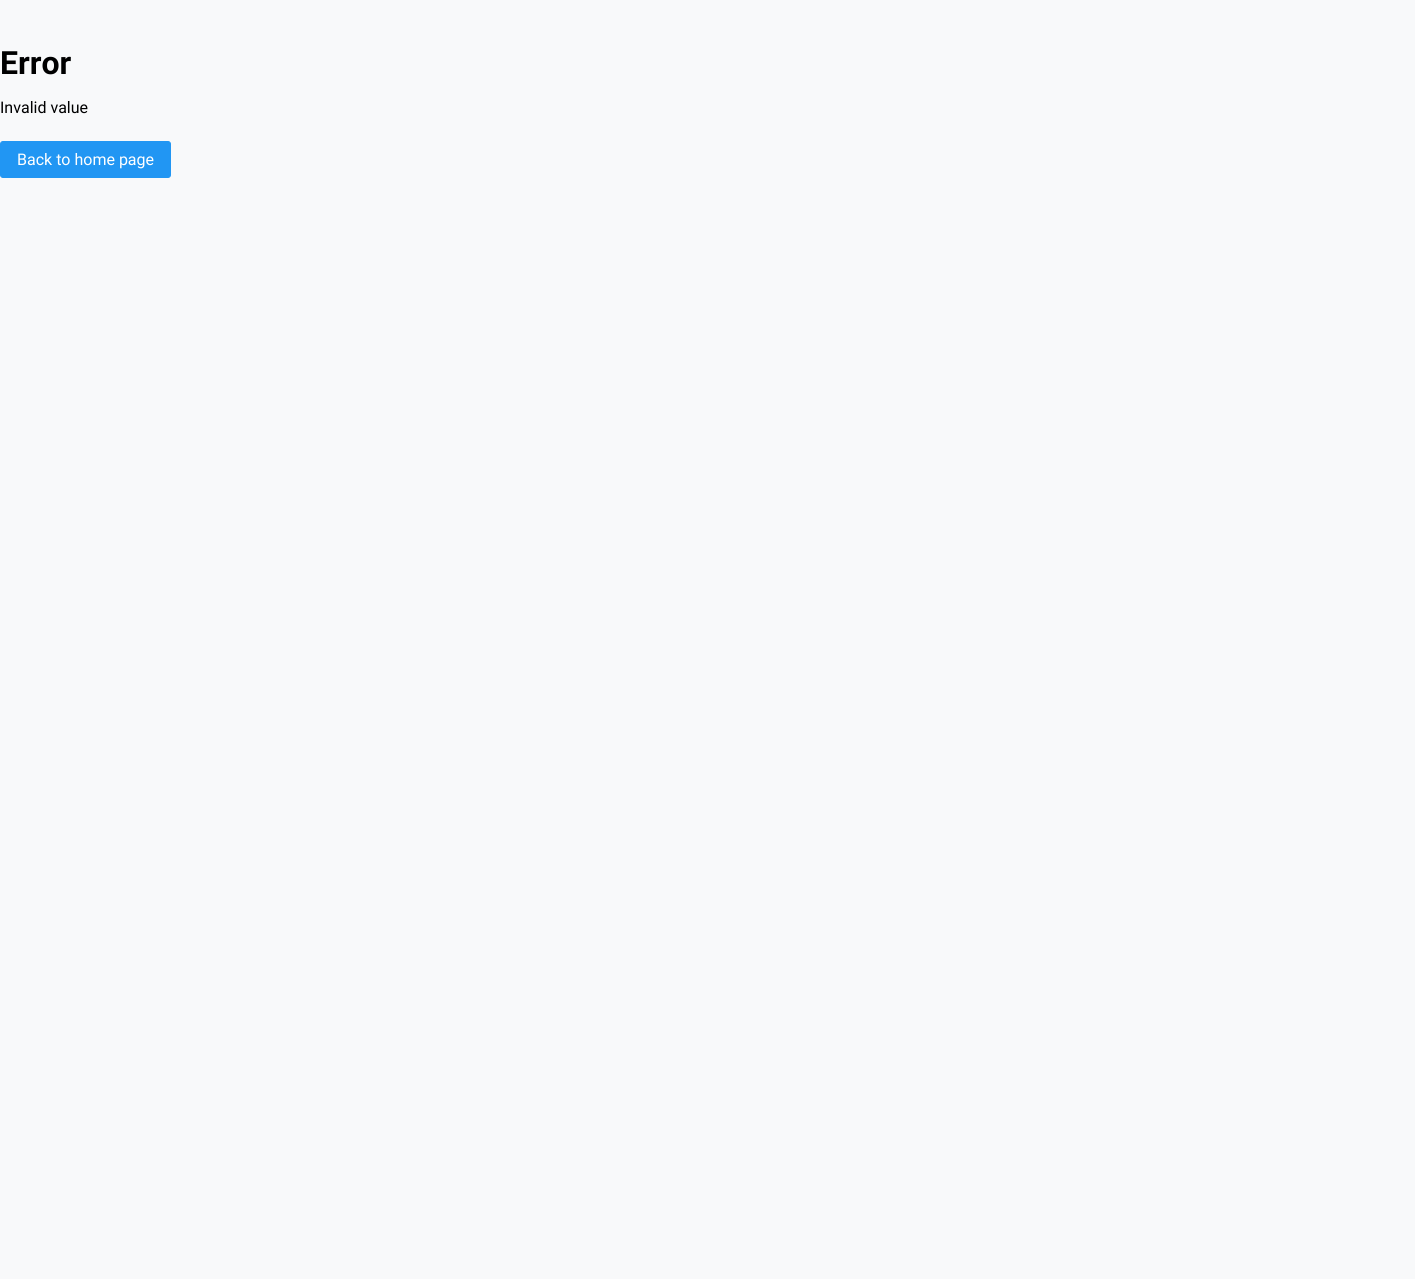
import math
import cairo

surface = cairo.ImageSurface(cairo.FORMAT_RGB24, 1415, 1279)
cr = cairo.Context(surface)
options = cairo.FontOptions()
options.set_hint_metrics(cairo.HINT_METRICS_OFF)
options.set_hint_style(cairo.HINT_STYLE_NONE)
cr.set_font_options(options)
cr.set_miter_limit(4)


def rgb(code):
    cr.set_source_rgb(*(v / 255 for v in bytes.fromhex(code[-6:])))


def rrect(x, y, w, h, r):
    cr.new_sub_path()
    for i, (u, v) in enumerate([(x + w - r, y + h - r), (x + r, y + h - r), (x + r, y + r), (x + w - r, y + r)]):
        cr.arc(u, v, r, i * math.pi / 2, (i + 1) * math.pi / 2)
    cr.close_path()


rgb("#f8f9fa")
cr.paint()
rgb("#2196f3")
rrect(0.5, 141.5, 170, 36, 2.5)
cr.fill_preserve()
cr.set_line_width(1)
cr.stroke()
cr.select_font_face("Roboto", cairo.FONT_SLANT_NORMAL, cairo.FONT_WEIGHT_BOLD)
cr.set_font_size(32)
rgb("#000000")
cr.move_to(0, 74)
cr.show_text("Error")
cr.select_font_face("Roboto")
cr.set_font_size(16)
cr.move_to(0, 113)
cr.show_text("Invalid value")
rgb("#ffffff")
cr.move_to(17, 165)
cr.show_text("Back to home page")
surface.write_to_png("page.png")
